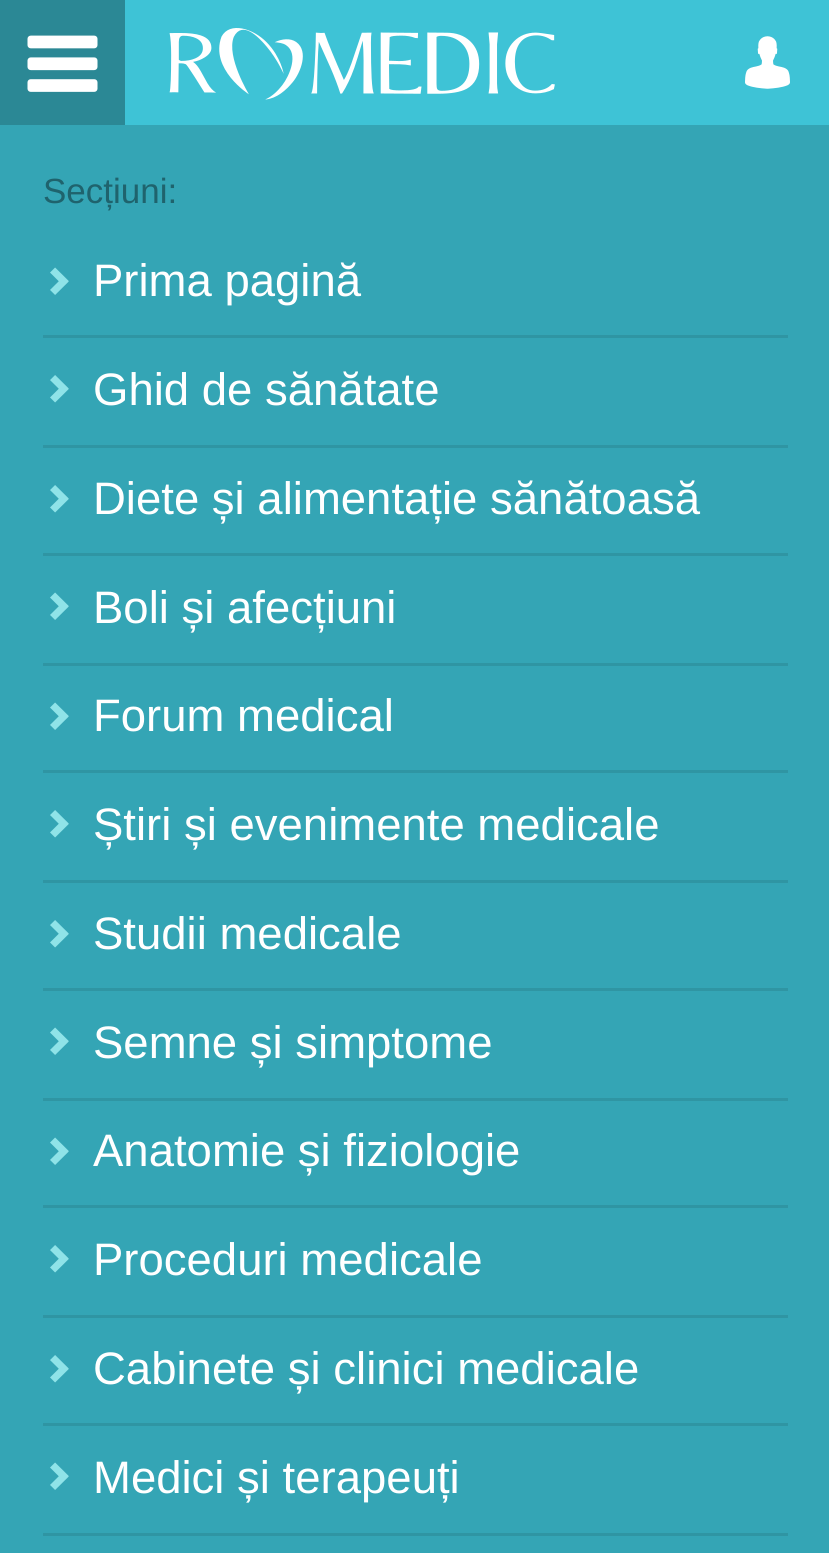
import math
import cairo

surface = cairo.ImageSurface(cairo.FORMAT_RGB24, 829, 1553)
cr = cairo.Context(surface)
options = cairo.FontOptions()
options.set_hint_metrics(cairo.HINT_METRICS_OFF)
options.set_hint_style(cairo.HINT_STYLE_NONE)
cr.set_font_options(options)
cr.set_miter_limit(4)


def rgb(code):
    cr.set_source_rgb(*(v / 255 for v in bytes.fromhex(code[-6:])))


def image(path, x, y, w, h):
    cr.save()
    cr.set_source_surface(cairo.ImageSurface.create_from_png(path), x, y)
    cr.rectangle(x, y, w, h)
    cr.fill()
    cr.restore()


rgb("#3ec3d6")
cr.paint()
image("img/1.png", 169, 28, 386, 72)
image("img/2.png", 745, 36, 45, 53)
rgb("#2b8895")
cr.rectangle(0, 0, 125, 125)
cr.fill()
image("img/3.png", 27, 35, 71, 57)
rgb("#34a5b5")
cr.rectangle(0, 125, 829, 1428)
cr.fill()
rgb("#2f95a3")
cr.rectangle(43, 335, 745, 3)
cr.fill()
image("img/4.png", 50, 267, 19, 28)
cr.rectangle(43, 445, 745, 3)
cr.fill()
image("img/5.png", 50, 375, 19, 28)
cr.rectangle(43, 553, 745, 3)
cr.fill()
image("img/5.png", 50, 485, 19, 28)
cr.rectangle(43, 663, 745, 3)
cr.fill()
image("img/4.png", 50, 592, 19, 28)
cr.rectangle(43, 770, 745, 3)
cr.fill()
image("img/4.png", 50, 702, 19, 28)
cr.rectangle(43, 880, 745, 3)
cr.fill()
image("img/5.png", 50, 810, 19, 28)
cr.rectangle(43, 988, 745, 3)
cr.fill()
image("img/5.png", 50, 920, 19, 28)
cr.rectangle(43, 1098, 745, 3)
cr.fill()
image("img/4.png", 50, 1027, 19, 28)
cr.rectangle(43, 1205, 745, 3)
cr.fill()
image("img/4.png", 50, 1137, 19, 28)
cr.rectangle(43, 1315, 745, 3)
cr.fill()
image("img/5.png", 50, 1245, 19, 28)
cr.rectangle(43, 1423, 745, 3)
cr.fill()
image("img/5.png", 50, 1355, 19, 28)
cr.rectangle(43, 1533, 745, 3)
cr.fill()
image("img/4.png", 50, 1462, 19, 28)
cr.select_font_face("Liberation Sans")
cr.set_font_size(35)
rgb("#1f636d")
cr.move_to(43, 203)
cr.show_text("Secțiuni:")
cr.set_font_size(45.5)
rgb("#ffffff")
for x, y, s in [
    (93, 296, "Prima pagină"),
    (93, 405, "Ghid de sănătate"),
    (93, 514, "Diete și alimentație sănătoasă"),
    (93, 623, "Boli și afecțiuni"),
    (93, 731, "Forum medical"),
    (93, 840, "Știri și evenimente medicale"),
    (93, 949, "Studii medicale"),
    (93, 1058, "Semne și simptome"),
    (93, 1166, "Anatomie și fiziologie"),
    (93, 1275, "Proceduri medicale"),
    (93, 1384, "Cabinete și clinici medicale"),
    (93, 1493, "Medici și terapeuți"),
]:
    cr.move_to(x, y)
    cr.show_text(s)
surface.write_to_png("page.png")
